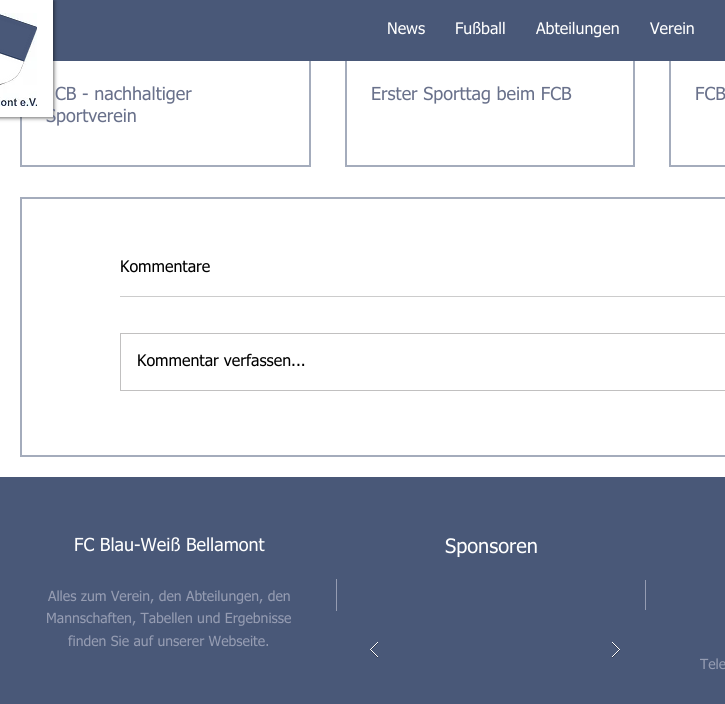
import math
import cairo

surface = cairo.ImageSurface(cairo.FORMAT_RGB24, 725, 704)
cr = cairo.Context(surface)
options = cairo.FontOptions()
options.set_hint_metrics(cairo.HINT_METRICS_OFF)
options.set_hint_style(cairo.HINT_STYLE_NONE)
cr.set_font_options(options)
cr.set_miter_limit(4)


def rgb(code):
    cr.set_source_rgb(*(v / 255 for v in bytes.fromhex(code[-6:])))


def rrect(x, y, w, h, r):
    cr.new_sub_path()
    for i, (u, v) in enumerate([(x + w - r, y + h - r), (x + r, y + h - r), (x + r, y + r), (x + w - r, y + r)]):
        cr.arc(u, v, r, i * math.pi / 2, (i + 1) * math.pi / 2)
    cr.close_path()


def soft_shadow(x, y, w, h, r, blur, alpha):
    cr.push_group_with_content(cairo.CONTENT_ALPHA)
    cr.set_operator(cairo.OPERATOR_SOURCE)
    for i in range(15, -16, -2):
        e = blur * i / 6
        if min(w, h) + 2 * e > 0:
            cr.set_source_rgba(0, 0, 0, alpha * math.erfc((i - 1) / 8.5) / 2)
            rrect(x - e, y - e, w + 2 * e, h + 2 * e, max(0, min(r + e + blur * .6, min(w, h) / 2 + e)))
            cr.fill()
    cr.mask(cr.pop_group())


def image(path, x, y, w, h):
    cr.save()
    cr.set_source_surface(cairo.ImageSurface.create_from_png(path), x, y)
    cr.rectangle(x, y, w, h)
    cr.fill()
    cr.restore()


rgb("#ffffff")
cr.paint()
cr.rectangle(21, -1, 289, 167)
rgb("#a4acbc")
cr.stroke()
cr.rectangle(346, -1, 288, 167)
cr.stroke()
cr.rectangle(670, -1, 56, 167)
cr.stroke()
rgb("#495878")
cr.rectangle(53, 0, 672, 61)
cr.fill()
rgb("#000000")
soft_shadow(-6, 1, 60, 117, 0, 2, 0.6)
cr.rectangle(21, 198, 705, 258)
rgb("#a4acbc")
cr.stroke()
rgb("#cccccc")
cr.rectangle(120, 296, 605, 1)
cr.fill()
cr.rectangle(120.5, 333.5, 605, 57)
rgb("#c1c0c0")
cr.set_line_width(1)
cr.stroke()
rgb("#495878")
cr.rectangle(0, 477, 725, 227)
cr.fill()
image("img/3.png", 370, 642, 8, 16)
image("img/4.png", 612, 642, 8, 16)
rgb("#959cb2")
cr.rectangle(336, 579, 1, 32)
cr.fill()
cr.rectangle(645, 580, 1, 30)
cr.fill()
cr.select_font_face("tahoma")
cr.set_font_size(16)
rgb("#ffffff")
for x, y, s in [
    (387, 34, "News"),
    (455, 34, "Fußball"),
    (536, 34, "Abteilungen"),
    (650, 34, "Verein"),
]:
    cr.move_to(x, y)
    cr.show_text(s)
cr.set_font_size(18)
rgb("#69718b")
cr.move_to(55, 100)
cr.show_text("CB - nachhaltiger")
cr.move_to(46, 122)
cr.show_text("Sportverein")
rgb("#ffffff")
cr.rectangle(0, 0, 53, 117)
cr.fill()
image("img/1.png", 0, 13, 37, 93)
image("img/2.png", 0, 14, 37, 71)
rgb("#69718b")
cr.move_to(371, 100)
cr.show_text("Erster Sporttag beim FCB")
cr.move_to(695, 100)
cr.show_text("FCB")
cr.set_font_size(16)
rgb("#000000")
cr.move_to(120, 272)
cr.show_text("Kommentare")
cr.move_to(137, 366)
cr.show_text("Kommentar verfassen...")
cr.set_font_size(18)
rgb("#ffffff")
cr.move_to(74, 551)
cr.show_text("FC Blau-Weiß Bellamont")
cr.set_font_size(20)
cr.move_to(445, 553)
cr.show_text("Sponsoren")
cr.set_font_size(14)
rgb("#959cb2")
for x, y, s in [
    (48, 601, "Alles zum Verein, den Abteilungen, den"),
    (46, 623, "Mannschaften, Tabellen und Ergebnisse"),
    (68, 646, "finden Sie auf unserer Webseite."),
    (700, 669, "Tele"),
]:
    cr.move_to(x, y)
    cr.show_text(s)
surface.write_to_png("page.png")
